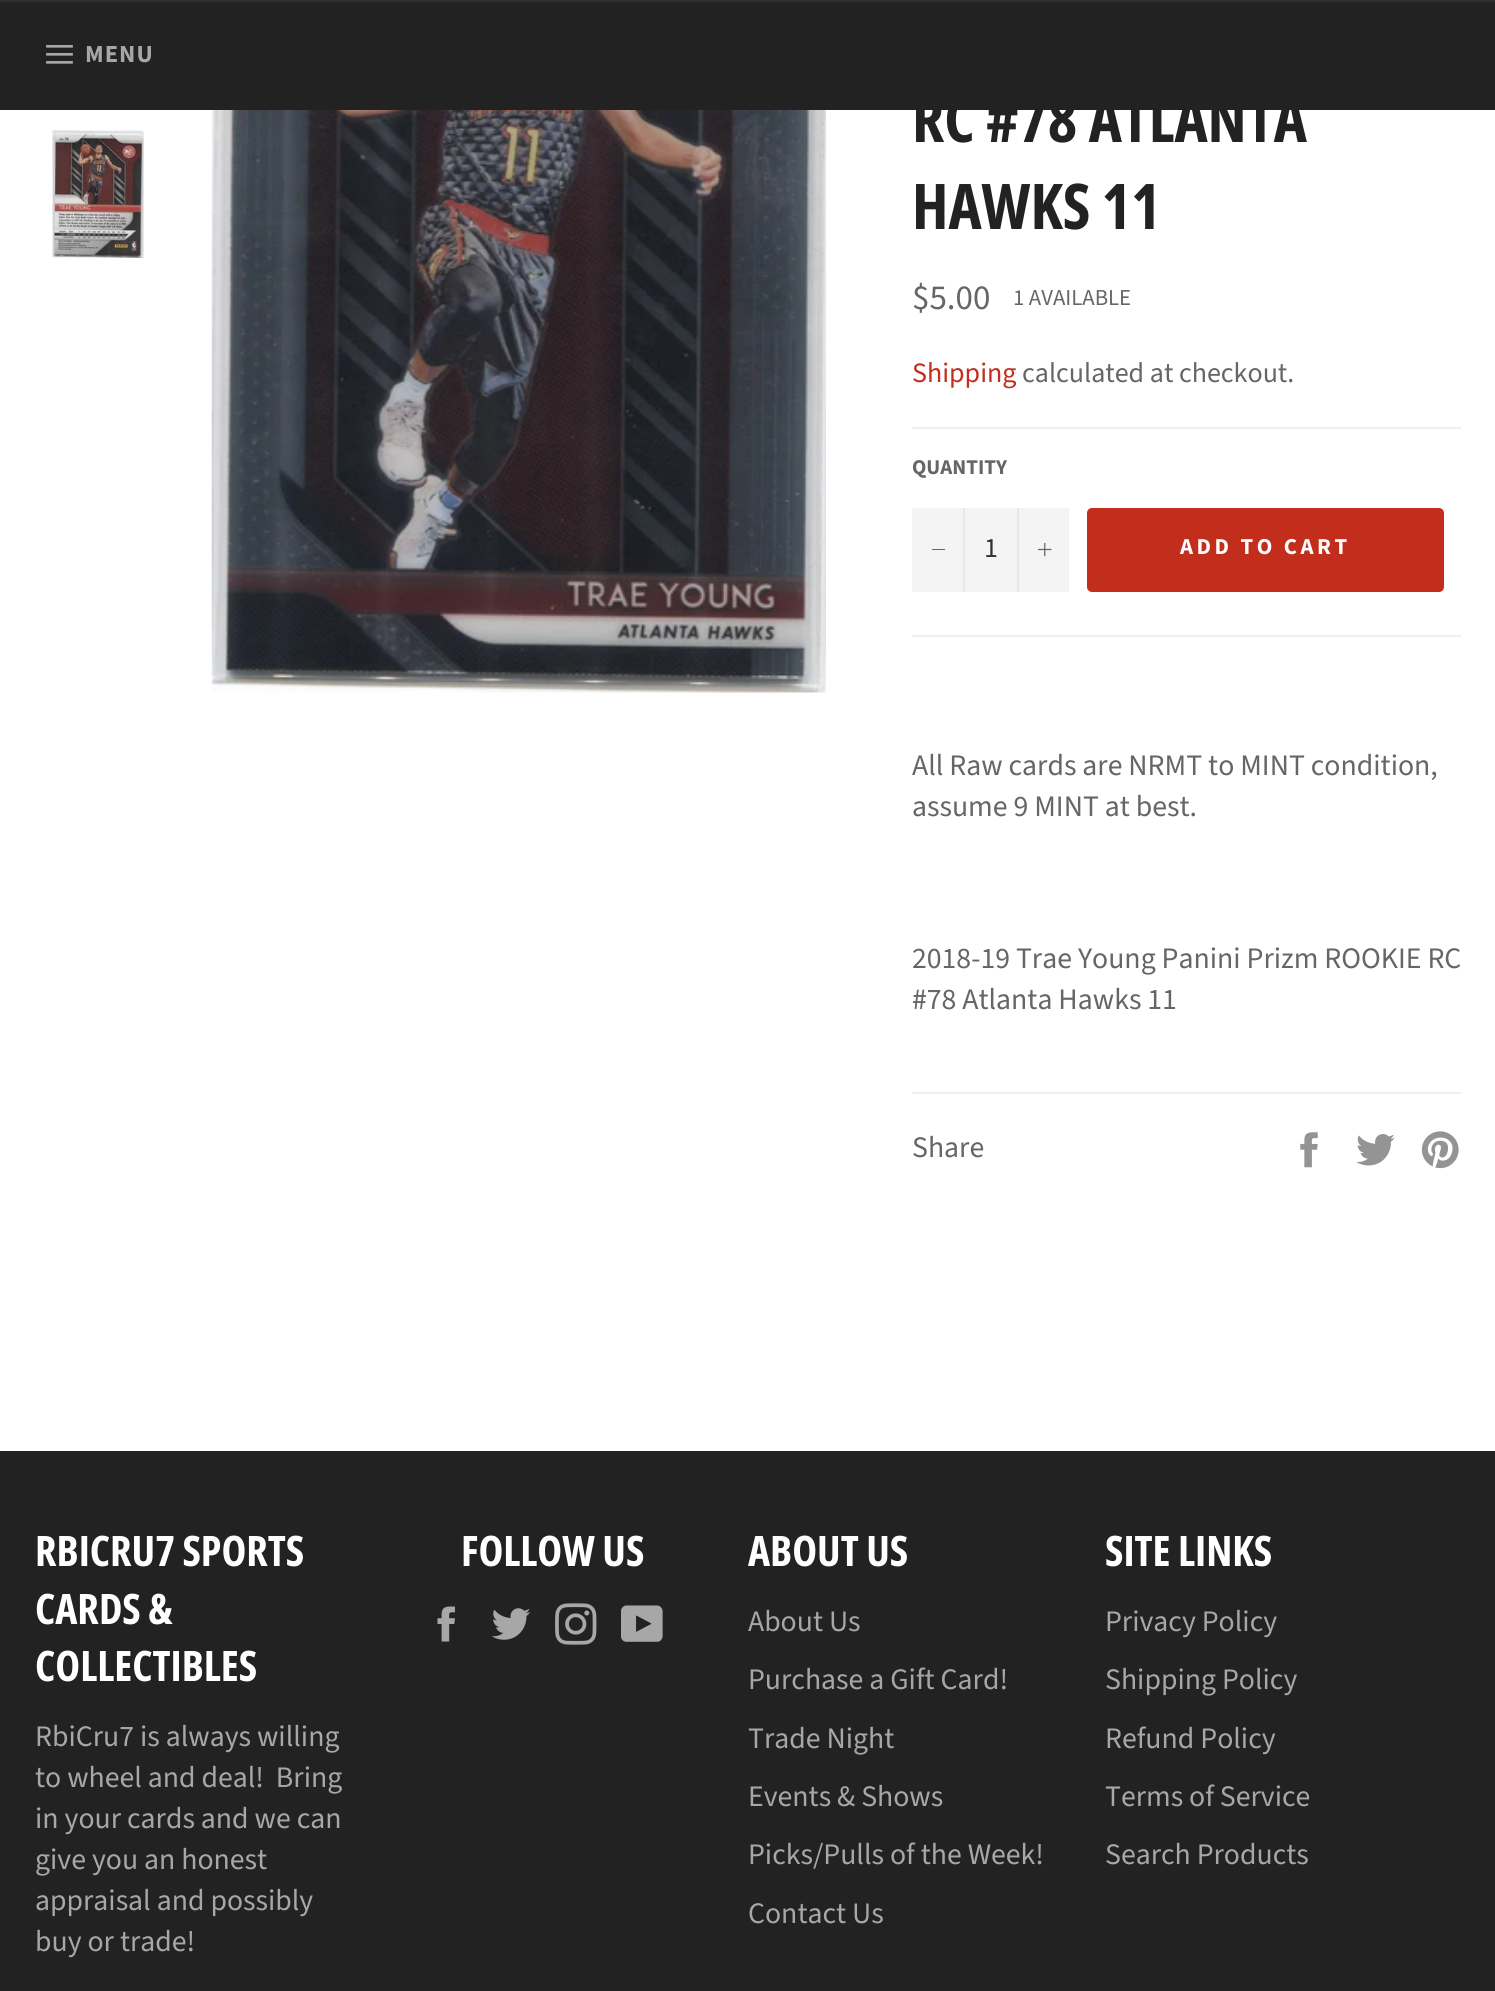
import math
import cairo

surface = cairo.ImageSurface(cairo.FORMAT_RGB24, 1495, 1991)
cr = cairo.Context(surface)
options = cairo.FontOptions()
options.set_hint_metrics(cairo.HINT_METRICS_OFF)
options.set_hint_style(cairo.HINT_STYLE_NONE)
cr.set_font_options(options)
cr.set_miter_limit(4)


def rgb(code):
    cr.set_source_rgb(*(v / 255 for v in bytes.fromhex(code[-6:])))


def tracked(x, y, s, letter, word):
    cr.move_to(x, y)
    for ch in s:
        cr.show_text(ch)
        cr.rel_move_to(letter + word * (ch == ' '), 0)


def rrect(x, y, w, h, r):
    cr.new_sub_path()
    for i, (u, v) in enumerate([(x + w - r, y + h - r), (x + r, y + h - r), (x + r, y + r), (x + w - r, y + r)]):
        cr.arc(u, v, r, i * math.pi / 2, (i + 1) * math.pi / 2)
    cr.close_path()


def image(path, x, y, w, h):
    cr.save()
    cr.set_source_surface(cairo.ImageSurface.create_from_png(path), x, y)
    cr.rectangle(x, y, w, h)
    cr.fill()
    cr.restore()


rgb("#ffffff")
cr.paint()
rgb("#222222")
cr.rectangle(0, 2, 1495, 108)
cr.fill()
rgb("#2f2f2f")
cr.rectangle(0, 0, 1495, 2)
cr.fill()
image("img/1.png", 46, 45, 27, 19)
image("img/2.png", 52, 130, 92, 128)
image("img/3.png", 211, 110, 615, 583)
for x, y, w, h, color in [
    (912, 427, 549, 2, "#f0f0f0"),
    (912, 508, 157, 84, "#f4f4f4"),
    (963, 508, 2, 84, "#e7e7e7"),
    (932, 549, 13, 1, "#666666"),
    (1017, 508, 2, 84, "#e7e7e7"),
]:
    rgb(color)
    cr.rectangle(x, y, w, h)
    cr.fill()
image("img/4.png", 1038, 543, 14, 14)
rgb("#c32d1c")
rrect(1087, 508, 357, 84, 5)
cr.fill()
rgb("#f0f0f0")
cr.rectangle(912, 635, 549, 2)
cr.fill()
cr.rectangle(912, 1092, 549, 2)
cr.fill()
image("img/5.png", 1300, 1132, 18, 36)
image("img/6.png", 1356, 1134, 39, 32)
image("img/7.png", 1421, 1131, 38, 38)
rgb("#222222")
cr.rectangle(0, 1451, 1495, 540)
cr.fill()
image("img/8.png", 437, 1606, 18, 36)
image("img/9.png", 492, 1608, 39, 32)
image("img/10.png", 555, 1603, 42, 42)
image("img/11.png", 621, 1605, 42, 37)
cr.select_font_face("Source Sans Pro", cairo.FONT_SLANT_NORMAL, cairo.FONT_WEIGHT_BOLD)
cr.set_font_size(24.5)
rgb("#a7a7a7")
tracked(85, 62, "MENU", 1, 0)
cr.select_font_face("Open Sans Condensed", cairo.FONT_SLANT_NORMAL, cairo.FONT_WEIGHT_BOLD)
cr.set_font_size(63)
rgb("#222222")
cr.move_to(912, 142)
cr.show_text("RC #78 ATLANTA")
cr.move_to(912, 229)
cr.show_text("HAWKS 11")
cr.select_font_face("Source Sans Pro")
cr.set_font_size(35)
rgb("#666666")
cr.move_to(912, 309)
cr.show_text("$5.00")
cr.set_font_size(22.75)
cr.move_to(1013, 305)
cr.show_text("1 AVAILABLE")
cr.set_font_size(28)
rgb("#c32d1c")
cr.move_to(912, 382)
cr.show_text("Shipping")
rgb("#666666")
cr.move_to(1022, 382)
cr.show_text("calculated at checkout.")
cr.select_font_face("Source Sans Pro", cairo.FONT_SLANT_NORMAL, cairo.FONT_WEIGHT_BOLD)
cr.set_font_size(21)
cr.move_to(912, 474)
cr.show_text("QUANTITY")
cr.select_font_face("Source Sans Pro")
cr.set_font_size(28)
rgb("#333333")
cr.move_to(984, 557)
cr.show_text("1")
cr.select_font_face("Source Sans Pro", cairo.FONT_SLANT_NORMAL, cairo.FONT_WEIGHT_BOLD)
cr.set_font_size(22.75)
rgb("#ffffff")
tracked(1180, 554, "ADD TO CART", 3.5, 0)
cr.select_font_face("Source Sans Pro")
cr.set_font_size(29.75)
rgb("#666666")
for x, y, s in [
    (912, 775, "All Raw cards are NRMT to MINT condition,"),
    (912, 816, "assume 9 MINT at best."),
    (912, 968, "2018-19 Trae Young Panini Prizm ROOKIE RC"),
    (912, 1009, "#78 Atlanta Hawks 11"),
    (912, 1157, "Share"),
]:
    cr.move_to(x, y)
    cr.show_text(s)
cr.select_font_face("Open Sans Condensed", cairo.FONT_SLANT_NORMAL, cairo.FONT_WEIGHT_BOLD)
cr.set_font_size(42)
rgb("#ffffff")
for x, y, s in [
    (35, 1566, "RBICRU7 SPORTS"),
    (35, 1624, "CARDS &"),
    (35, 1681, "COLLECTIBLES"),
]:
    cr.move_to(x, y)
    cr.show_text(s)
cr.select_font_face("Source Sans Pro")
cr.set_font_size(29.75)
rgb("#a7a7a7")
for x, y, s in [
    (35, 1746, "RbiCru7 is always willing"),
    (35, 1787, "to wheel and deal!  Bring"),
    (35, 1828, "in your cards and we can"),
    (35, 1869, "give you an honest"),
    (35, 1910, "appraisal and possibly"),
    (35, 1951, "buy or trade!"),
]:
    cr.move_to(x, y)
    cr.show_text(s)
cr.select_font_face("Open Sans Condensed", cairo.FONT_SLANT_NORMAL, cairo.FONT_WEIGHT_BOLD)
cr.set_font_size(42)
rgb("#ffffff")
cr.move_to(461, 1566)
cr.show_text("FOLLOW US")
cr.move_to(748, 1566)
cr.show_text("ABOUT US")
cr.select_font_face("Source Sans Pro")
cr.set_font_size(29.75)
rgb("#a7a7a7")
for x, y, s in [
    (748, 1631, "About Us"),
    (748, 1689, "Purchase a Gift Card!"),
    (748, 1748, "Trade Night"),
    (748, 1806, "Events & Shows"),
    (748, 1864, "Picks/Pulls of the Week!"),
    (748, 1923, "Contact Us"),
]:
    cr.move_to(x, y)
    cr.show_text(s)
cr.select_font_face("Open Sans Condensed", cairo.FONT_SLANT_NORMAL, cairo.FONT_WEIGHT_BOLD)
cr.set_font_size(42)
rgb("#ffffff")
cr.move_to(1105, 1566)
cr.show_text("SITE LINKS")
cr.select_font_face("Source Sans Pro")
cr.set_font_size(29.75)
rgb("#a7a7a7")
for x, y, s in [
    (1105, 1631, "Privacy Policy"),
    (1105, 1689, "Shipping Policy"),
    (1105, 1748, "Refund Policy"),
    (1105, 1806, "Terms of Service"),
    (1105, 1864, "Search Products"),
]:
    cr.move_to(x, y)
    cr.show_text(s)
surface.write_to_png("page.png")
